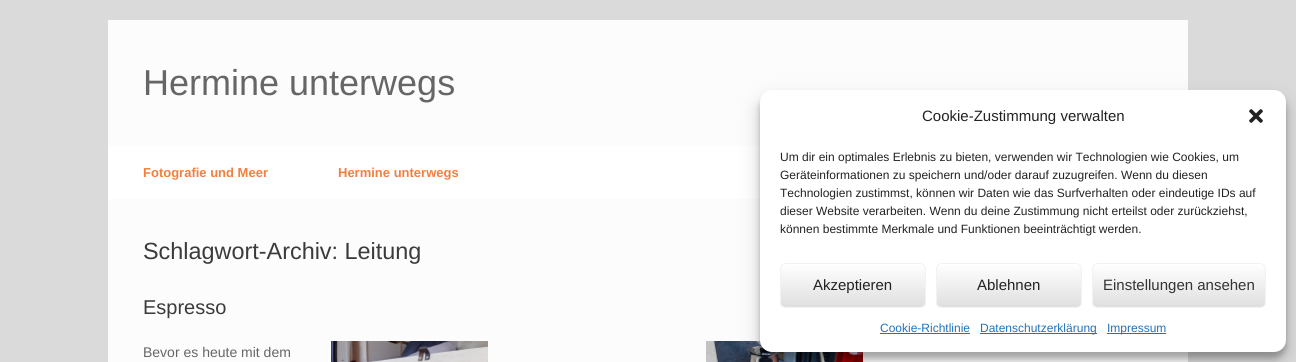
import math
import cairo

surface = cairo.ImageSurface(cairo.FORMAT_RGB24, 1296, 362)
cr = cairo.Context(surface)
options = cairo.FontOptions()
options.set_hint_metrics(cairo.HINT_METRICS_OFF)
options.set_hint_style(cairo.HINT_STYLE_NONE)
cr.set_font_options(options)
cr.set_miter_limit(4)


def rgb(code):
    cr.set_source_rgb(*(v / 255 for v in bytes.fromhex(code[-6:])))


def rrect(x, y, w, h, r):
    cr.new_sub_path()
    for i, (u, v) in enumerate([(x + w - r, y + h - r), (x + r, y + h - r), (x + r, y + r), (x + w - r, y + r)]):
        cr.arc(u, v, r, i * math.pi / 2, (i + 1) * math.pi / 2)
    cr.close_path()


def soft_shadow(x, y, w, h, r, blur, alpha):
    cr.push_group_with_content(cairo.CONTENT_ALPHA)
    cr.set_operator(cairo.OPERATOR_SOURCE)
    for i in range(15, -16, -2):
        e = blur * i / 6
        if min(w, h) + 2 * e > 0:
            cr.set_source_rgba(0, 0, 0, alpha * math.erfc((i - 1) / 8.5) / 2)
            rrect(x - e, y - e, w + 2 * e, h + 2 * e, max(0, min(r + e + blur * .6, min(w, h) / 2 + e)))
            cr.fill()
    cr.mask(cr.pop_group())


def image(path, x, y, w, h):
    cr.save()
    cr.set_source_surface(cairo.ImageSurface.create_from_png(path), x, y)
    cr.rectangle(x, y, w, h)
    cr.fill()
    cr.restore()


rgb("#dadada")
cr.paint()
for x, y, w, h, color in [
    (108, 20, 1080, 126, "#fcfcfc"),
    (108, 146, 652, 53, "#ffffff"),
    (108, 199, 1080, 163, "#fcfcfc"),
]:
    rgb(color)
    cr.rectangle(x, y, w, h)
    cr.fill()
image("img/1.png", 331, 341, 157, 21)
image("img/2.png", 706, 341, 157, 21)
rgb("#000000")
soft_shadow(760, 96, 526, 262, 12, 3, 0.23)
soft_shadow(760, 100, 526, 262, 12, 10, 0.19)
rgb("#ffffff")
rrect(760, 90, 526, 262, 12)
cr.fill()
image("img/3.png", 1249, 109, 14, 14)
cr.save()
rrect(780, 263, 146, 45, 6)
cr.clip()
gradient = cairo.LinearGradient(781, 307, 781, 264)
gradient.add_color_stop_rgba(0, 0.875, 0.875, 0.875, 1)
gradient.add_color_stop_rgba(1, 1, 1, 1, 1)
cr.set_source(gradient)
cr.rectangle(780, 264, 146, 43)
cr.fill()
cr.restore()
rrect(780.5, 263.5, 145, 44, 5.5)
rgb("#f2f2f2")
cr.set_line_width(1)
cr.stroke()
cr.save()
rrect(936, 263, 146, 45, 6)
cr.clip()
gradient = cairo.LinearGradient(937, 307, 937, 264)
gradient.add_color_stop_rgba(0, 0.875, 0.875, 0.875, 1)
gradient.add_color_stop_rgba(1, 1, 1, 1, 1)
cr.set_source(gradient)
cr.rectangle(936, 264, 146, 43)
cr.fill()
cr.restore()
rrect(936.5, 263.5, 145, 44, 5.5)
cr.stroke()
cr.save()
rrect(1092, 263, 174, 45, 6)
cr.clip()
gradient = cairo.LinearGradient(1093, 307, 1093, 264)
gradient.add_color_stop_rgba(0, 0.875, 0.875, 0.875, 1)
gradient.add_color_stop_rgba(1, 1, 1, 1, 1)
cr.set_source(gradient)
cr.rectangle(1092, 264, 174, 43)
cr.fill()
cr.restore()
rrect(1092.5, 263.5, 173, 44, 5.5)
cr.stroke()
for x, y, w, h, color in [
    (880, 333, 90, 1, "#1e73be"),
    (980, 333, 117, 1, "#1e73be"),
    (1107, 333, 59, 1, "#1e73be"),
]:
    rgb(color)
    cr.rectangle(x, y, w, h)
    cr.fill()
cr.select_font_face("Liberation Sans")
cr.set_font_size(36)
rgb("#666666")
cr.move_to(143, 95)
cr.show_text("Hermine unterwegs")
cr.select_font_face("Liberation Sans", cairo.FONT_SLANT_NORMAL, cairo.FONT_WEIGHT_BOLD)
cr.set_font_size(13)
rgb("#f47e3c")
cr.move_to(143, 177)
cr.show_text("Fotografie und Meer")
cr.move_to(338, 177)
cr.show_text("Hermine unterwegs")
cr.select_font_face("Liberation Sans")
cr.set_font_size(23.4)
rgb("#3b3b3b")
cr.move_to(143, 259)
cr.show_text("Schlagwort-Archiv: Leitung")
cr.set_font_size(20)
cr.move_to(143, 314)
cr.show_text("Espresso")
cr.set_font_size(14)
rgb("#666666")
cr.move_to(143, 357)
cr.show_text("Bevor es heute mit dem")
cr.set_font_size(15)
rgb("#222222")
cr.move_to(922, 121)
cr.show_text("Cookie-Zustimmung verwalten")
cr.set_font_size(12)
for x, y, s in [
    (780, 161, "Um dir ein optimales Erlebnis zu bieten, verwenden wir Technologien wie Cookies, um"),
    (780, 179, "Geräteinformationen zu speichern und/oder darauf zuzugreifen. Wenn du diesen"),
    (780, 197, "Technologien zustimmst, können wir Daten wie das Surfverhalten oder eindeutige IDs auf"),
    (780, 215, "dieser Website verarbeiten. Wenn du deine Zustimmung nicht erteilst oder zurückziehst,"),
    (780, 233, "können bestimmte Merkmale und Funktionen beeinträchtigt werden."),
]:
    cr.move_to(x, y)
    cr.show_text(s)
cr.set_font_size(15)
cr.move_to(813, 290)
cr.show_text("Akzeptieren")
cr.move_to(977, 290)
cr.show_text("Ablehnen")
rgb("#333333")
cr.move_to(1103, 290)
cr.show_text("Einstellungen ansehen")
cr.set_font_size(12)
rgb("#1e73be")
for x, y, s in [
    (880, 332, "Cookie-Richtlinie"),
    (980, 332, "Datenschutzerklärung"),
    (1107, 332, "Impressum"),
]:
    cr.move_to(x, y)
    cr.show_text(s)
surface.write_to_png("page.png")
